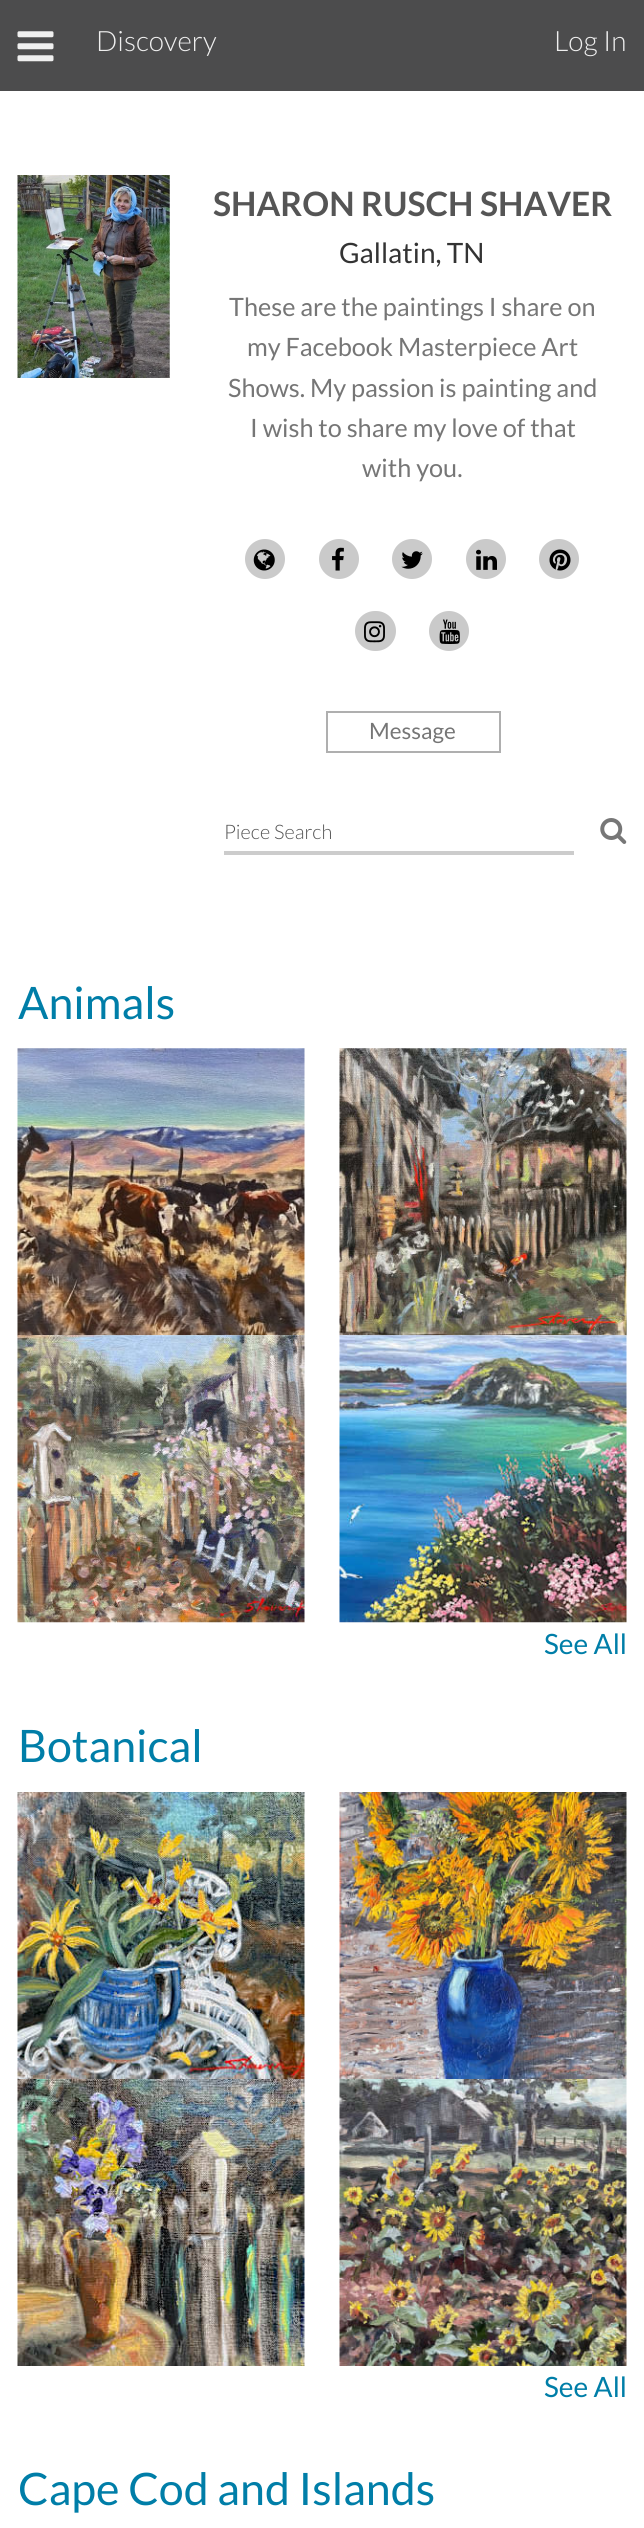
import math
import cairo

surface = cairo.ImageSurface(cairo.FORMAT_RGB24, 644, 2528)
cr = cairo.Context(surface)
options = cairo.FontOptions()
options.set_hint_metrics(cairo.HINT_METRICS_OFF)
options.set_hint_style(cairo.HINT_STYLE_NONE)
cr.set_font_options(options)
cr.set_miter_limit(4)


def rgb(code):
    cr.set_source_rgb(*(v / 255 for v in bytes.fromhex(code[-6:])))


def rrect(x, y, w, h, r):
    cr.new_sub_path()
    for i, (u, v) in enumerate([(x + w - r, y + h - r), (x + r, y + h - r), (x + r, y + r), (x + w - r, y + r)]):
        cr.arc(u, v, r, i * math.pi / 2, (i + 1) * math.pi / 2)
    cr.close_path()


def image(path, x, y, w, h):
    cr.save()
    cr.set_source_surface(cairo.ImageSurface.create_from_png(path), x, y)
    cr.rectangle(x, y, w, h)
    cr.fill()
    cr.restore()


rgb("#ffffff")
cr.paint()
rgb("#4c4c4d")
cr.rectangle(0, 0, 644, 91)
cr.fill()
image("img/1.png", 17, 31, 37, 31)
image("img/2.png", 17, 175, 153, 203)
rgb("#cacaca")
cr.arc(265, 559, 20, 0, 2 * math.pi)
cr.fill()
image("img/3.png", 253, 549, 22, 22)
cr.arc(339, 559, 20, 0, 2 * math.pi)
cr.fill()
image("img/4.png", 332, 547, 12, 24)
cr.arc(412, 559, 20, 0, 2 * math.pi)
cr.fill()
image("img/5.png", 401, 551, 22, 18)
cr.arc(486, 559, 20, 0, 2 * math.pi)
cr.fill()
image("img/6.png", 476, 549, 21, 21)
cr.arc(559, 559, 20, 0, 2 * math.pi)
cr.fill()
image("img/7.png", 549, 549, 22, 22)
rrect(355, 611, 41, 40, 20)
cr.fill()
image("img/8.png", 364, 621, 21, 22)
cr.arc(449, 631, 20, 0, 2 * math.pi)
cr.fill()
image("img/9.png", 439, 619, 21, 25)
cr.rectangle(327, 712, 173, 40)
rgb("#afafaf")
cr.stroke()
rgb("#cccccc")
cr.rectangle(224, 851, 350, 4)
cr.fill()
image("img/10.png", 600, 818, 27, 26)
image("img/11.png", 17, 1048, 288, 288)
image("img/12.png", 339, 1048, 288, 288)
image("img/13.png", 17, 1335, 288, 288)
image("img/14.png", 339, 1335, 288, 288)
image("img/15.png", 17, 1792, 288, 287)
image("img/16.png", 339, 1792, 288, 287)
image("img/17.png", 17, 2079, 288, 287)
image("img/18.png", 339, 2079, 288, 287)
cr.select_font_face("Lato Light")
cr.set_font_size(28)
rgb("#efefef")
cr.move_to(96, 51)
cr.show_text("Discovery")
cr.move_to(554, 51)
cr.show_text("Log In")
cr.select_font_face("Lato", cairo.FONT_SLANT_NORMAL, cairo.FONT_WEIGHT_BOLD)
cr.set_font_size(33.6)
rgb("#555555")
cr.move_to(213, 216)
cr.show_text("SHARON RUSCH SHAVER")
cr.select_font_face("Lato")
cr.set_font_size(28)
rgb("#333333")
cr.move_to(339, 263)
cr.show_text("Gallatin, TN")
cr.set_font_size(25.25)
rgb("#767676")
for x, y, s in [
    (229, 316, "These are the paintings I share on"),
    (247, 356, "my Facebook Masterpiece Art"),
    (228, 397, "Shows. My passion is painting and"),
    (250, 437, "I wish to share my love of that"),
    (362, 477, "with you."),
]:
    cr.move_to(x, y)
    cr.show_text(s)
cr.set_font_size(22.5)
cr.move_to(369, 739)
cr.show_text("Message")
cr.select_font_face("Lato Light")
cr.set_font_size(20)
rgb("#555555")
cr.move_to(224, 839)
cr.show_text("Piece Search")
cr.select_font_face("Lato")
cr.set_font_size(44.75)
rgb("#007ea8")
cr.move_to(18, 1019)
cr.show_text("Animals")
cr.set_font_size(28)
cr.move_to(544, 1654)
cr.show_text("See All")
cr.set_font_size(44.75)
cr.move_to(18, 1762)
cr.show_text("Botanical")
cr.set_font_size(28)
cr.move_to(544, 2397)
cr.show_text("See All")
cr.set_font_size(44.75)
cr.move_to(18, 2505)
cr.show_text("Cape Cod and Islands")
surface.write_to_png("page.png")
